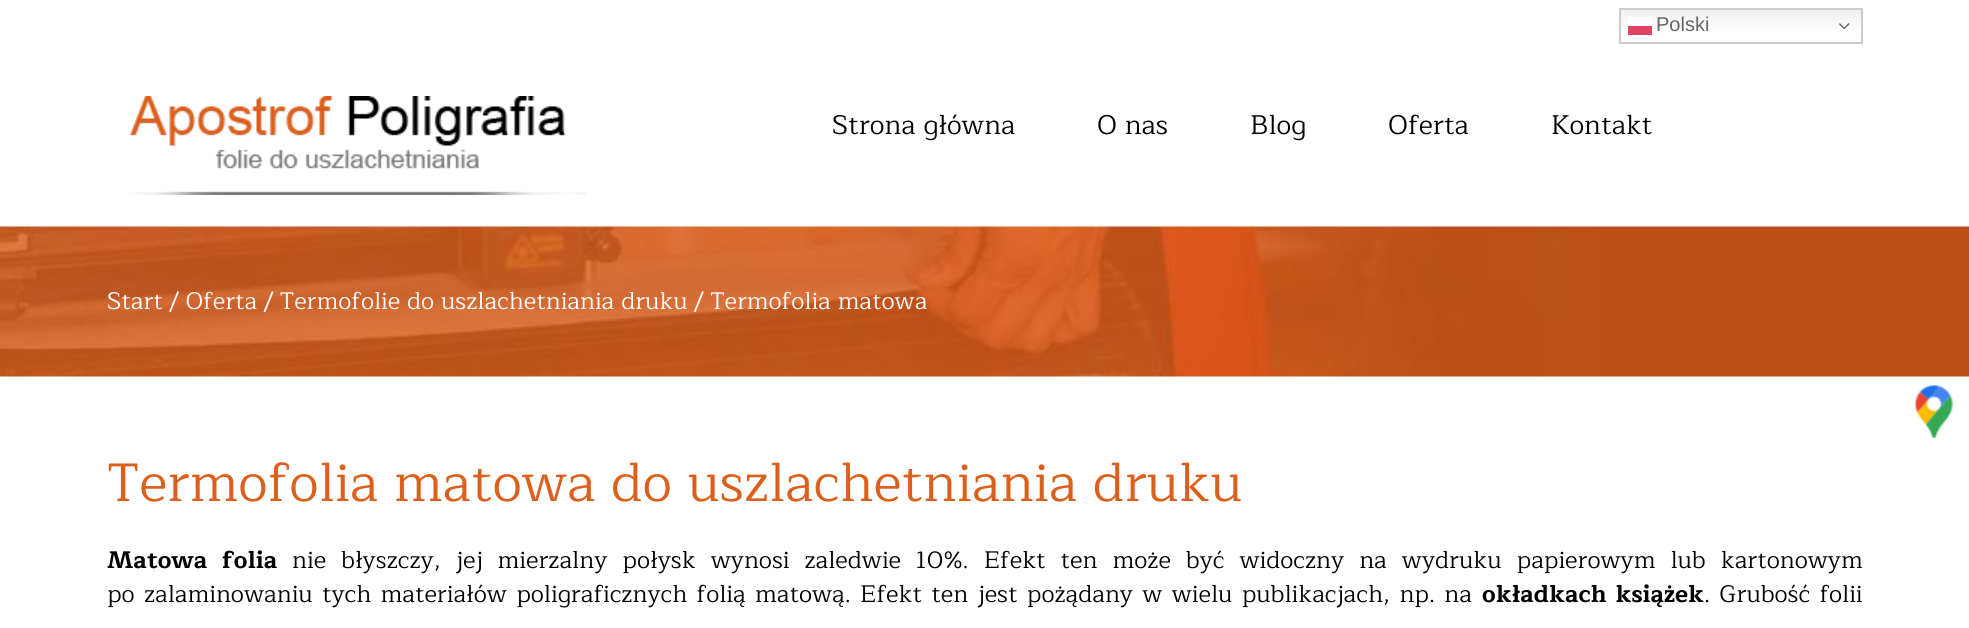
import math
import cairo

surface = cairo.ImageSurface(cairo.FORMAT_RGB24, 1969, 628)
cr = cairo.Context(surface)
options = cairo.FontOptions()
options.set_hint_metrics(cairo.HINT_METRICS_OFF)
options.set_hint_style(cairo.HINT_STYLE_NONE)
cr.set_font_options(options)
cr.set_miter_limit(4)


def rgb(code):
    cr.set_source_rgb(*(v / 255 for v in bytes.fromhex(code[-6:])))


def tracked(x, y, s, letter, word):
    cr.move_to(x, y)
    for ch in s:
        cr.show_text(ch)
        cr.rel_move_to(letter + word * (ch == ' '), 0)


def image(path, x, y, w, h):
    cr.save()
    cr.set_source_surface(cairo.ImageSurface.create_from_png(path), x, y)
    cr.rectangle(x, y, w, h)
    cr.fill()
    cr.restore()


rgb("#ffffff")
cr.paint()
gradient = cairo.LinearGradient(1741, 7.5, 1741, 44)
gradient.add_color_stop_rgba(0, 0.937, 0.937, 0.937, 1)
gradient.add_color_stop_rgba(0.7, 1, 1, 1, 1)
cr.set_source(gradient)
cr.rectangle(1621, 10, 240, 19)
cr.fill()
gradient = cairo.LinearGradient(1741, 7.5, 1741, 44)
gradient.add_color_stop_rgba(0, 0.988, 0.988, 0.988, 1)
gradient.add_color_stop_rgba(0.7, 1, 1, 1, 1)
cr.set_source(gradient)
cr.rectangle(1628, 17, 24, 9)
cr.fill()
cr.rectangle(1620, 9, 242, 34)
rgb("#cccccc")
cr.stroke()
rgb("#e34363")
cr.rectangle(1628, 26, 24, 9)
cr.fill()
image("img/1.png", 1839, 23, 11, 7)
image("img/2.png", 130, 96, 457, 99)
image("img/3.png", 0, 226, 1969, 151)
image("img/4.png", 1915, 385, 39, 53)
cr.select_font_face("Liberation Sans")
cr.set_font_size(20)
rgb("#666666")
cr.move_to(1656, 31)
cr.show_text("Polski")
cr.select_font_face("Maitree")
cr.set_font_size(27)
rgb("#000000")
for x, y, s in [
    (832, 134, "Strona główna"),
    (1097, 134, "O nas"),
    (1250, 134, "Blog"),
    (1388, 134, "Oferta"),
    (1551, 134, "Kontakt"),
]:
    cr.move_to(x, y)
    cr.show_text(s)
cr.set_font_size(24)
rgb("#ffffff")
cr.move_to(107, 309)
cr.show_text("Start / Oferta / Termofolie do uszlachetniania druku / Termofolia matowa")
cr.set_font_size(54)
rgb("#dc5f1c")
cr.move_to(107, 501)
cr.show_text("Termofolia matowa do uszlachetniania druku")
cr.select_font_face("Maitree", cairo.FONT_SLANT_NORMAL, cairo.FONT_WEIGHT_BOLD)
cr.set_font_size(24)
rgb("#000000")
tracked(107, 568, "Matowa folia", 0, 8.1)
cr.select_font_face("Maitree")
tracked(292, 568, "nie błyszczy, jej mierzalny połysk wynosi zaledwie 10%. Efekt ten może być widoczny na wydruku papierowym lub kartonowym", 0, 8.1)
tracked(107, 602, "po zalaminowaniu tych materiałów poligraficznych folią matową. Efekt ten jest pożądany w wielu publikacjach, np. na", 0, 2.4)
cr.select_font_face("Maitree", cairo.FONT_SLANT_NORMAL, cairo.FONT_WEIGHT_BOLD)
tracked(1482, 602, "okładkach książek", 0, 2.4)
cr.select_font_face("Maitree")
tracked(1704, 602, ". Grubość folii", 0, 2.4)
surface.write_to_png("page.png")
